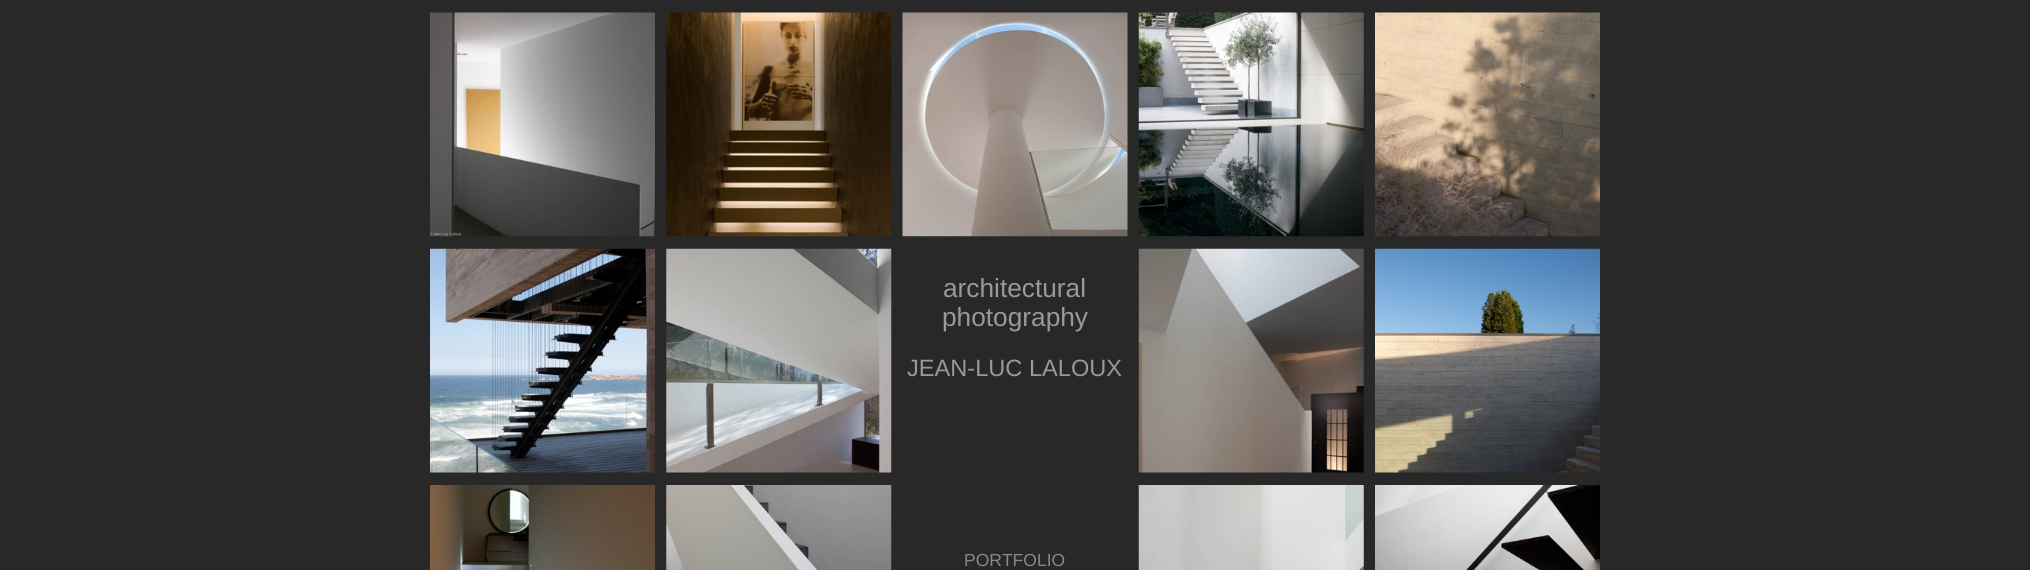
import math
import cairo

surface = cairo.ImageSurface(cairo.FORMAT_RGB24, 2030, 570)
cr = cairo.Context(surface)
options = cairo.FontOptions()
options.set_hint_metrics(cairo.HINT_METRICS_OFF)
options.set_hint_style(cairo.HINT_STYLE_NONE)
cr.set_font_options(options)
cr.set_miter_limit(4)


def rgb(code):
    cr.set_source_rgb(*(v / 255 for v in bytes.fromhex(code[-6:])))


def image(path, x, y, w, h):
    cr.save()
    cr.set_source_surface(cairo.ImageSurface.create_from_png(path), x, y)
    cr.rectangle(x, y, w, h)
    cr.fill()
    cr.restore()


rgb("#282828")
cr.paint()
image("img/1.png", 430, 12, 225, 225)
image("img/2.png", 666, 12, 226, 225)
image("img/3.png", 902, 12, 226, 225)
image("img/4.png", 1138, 12, 226, 225)
image("img/5.png", 1375, 12, 225, 225)
image("img/6.png", 430, 248, 225, 225)
image("img/7.png", 666, 248, 226, 225)
image("img/8.png", 1138, 248, 226, 225)
image("img/9.png", 1375, 248, 225, 225)
image("img/10.png", 430, 485, 225, 85)
image("img/11.png", 666, 485, 226, 85)
image("img/12.png", 1138, 485, 226, 85)
image("img/13.png", 1375, 485, 225, 85)
cr.select_font_face("Liberation Sans")
cr.set_font_size(26.25)
rgb("#999999")
cr.move_to(943, 297)
cr.show_text("architectural")
cr.move_to(942, 326)
cr.show_text("photography")
cr.set_font_size(23.6)
cr.move_to(907, 376)
cr.show_text("JEAN-LUC LALOUX")
cr.set_font_size(17.5)
rgb("#888888")
cr.move_to(964, 566)
cr.show_text("PORTFOLIO")
surface.write_to_png("page.png")
